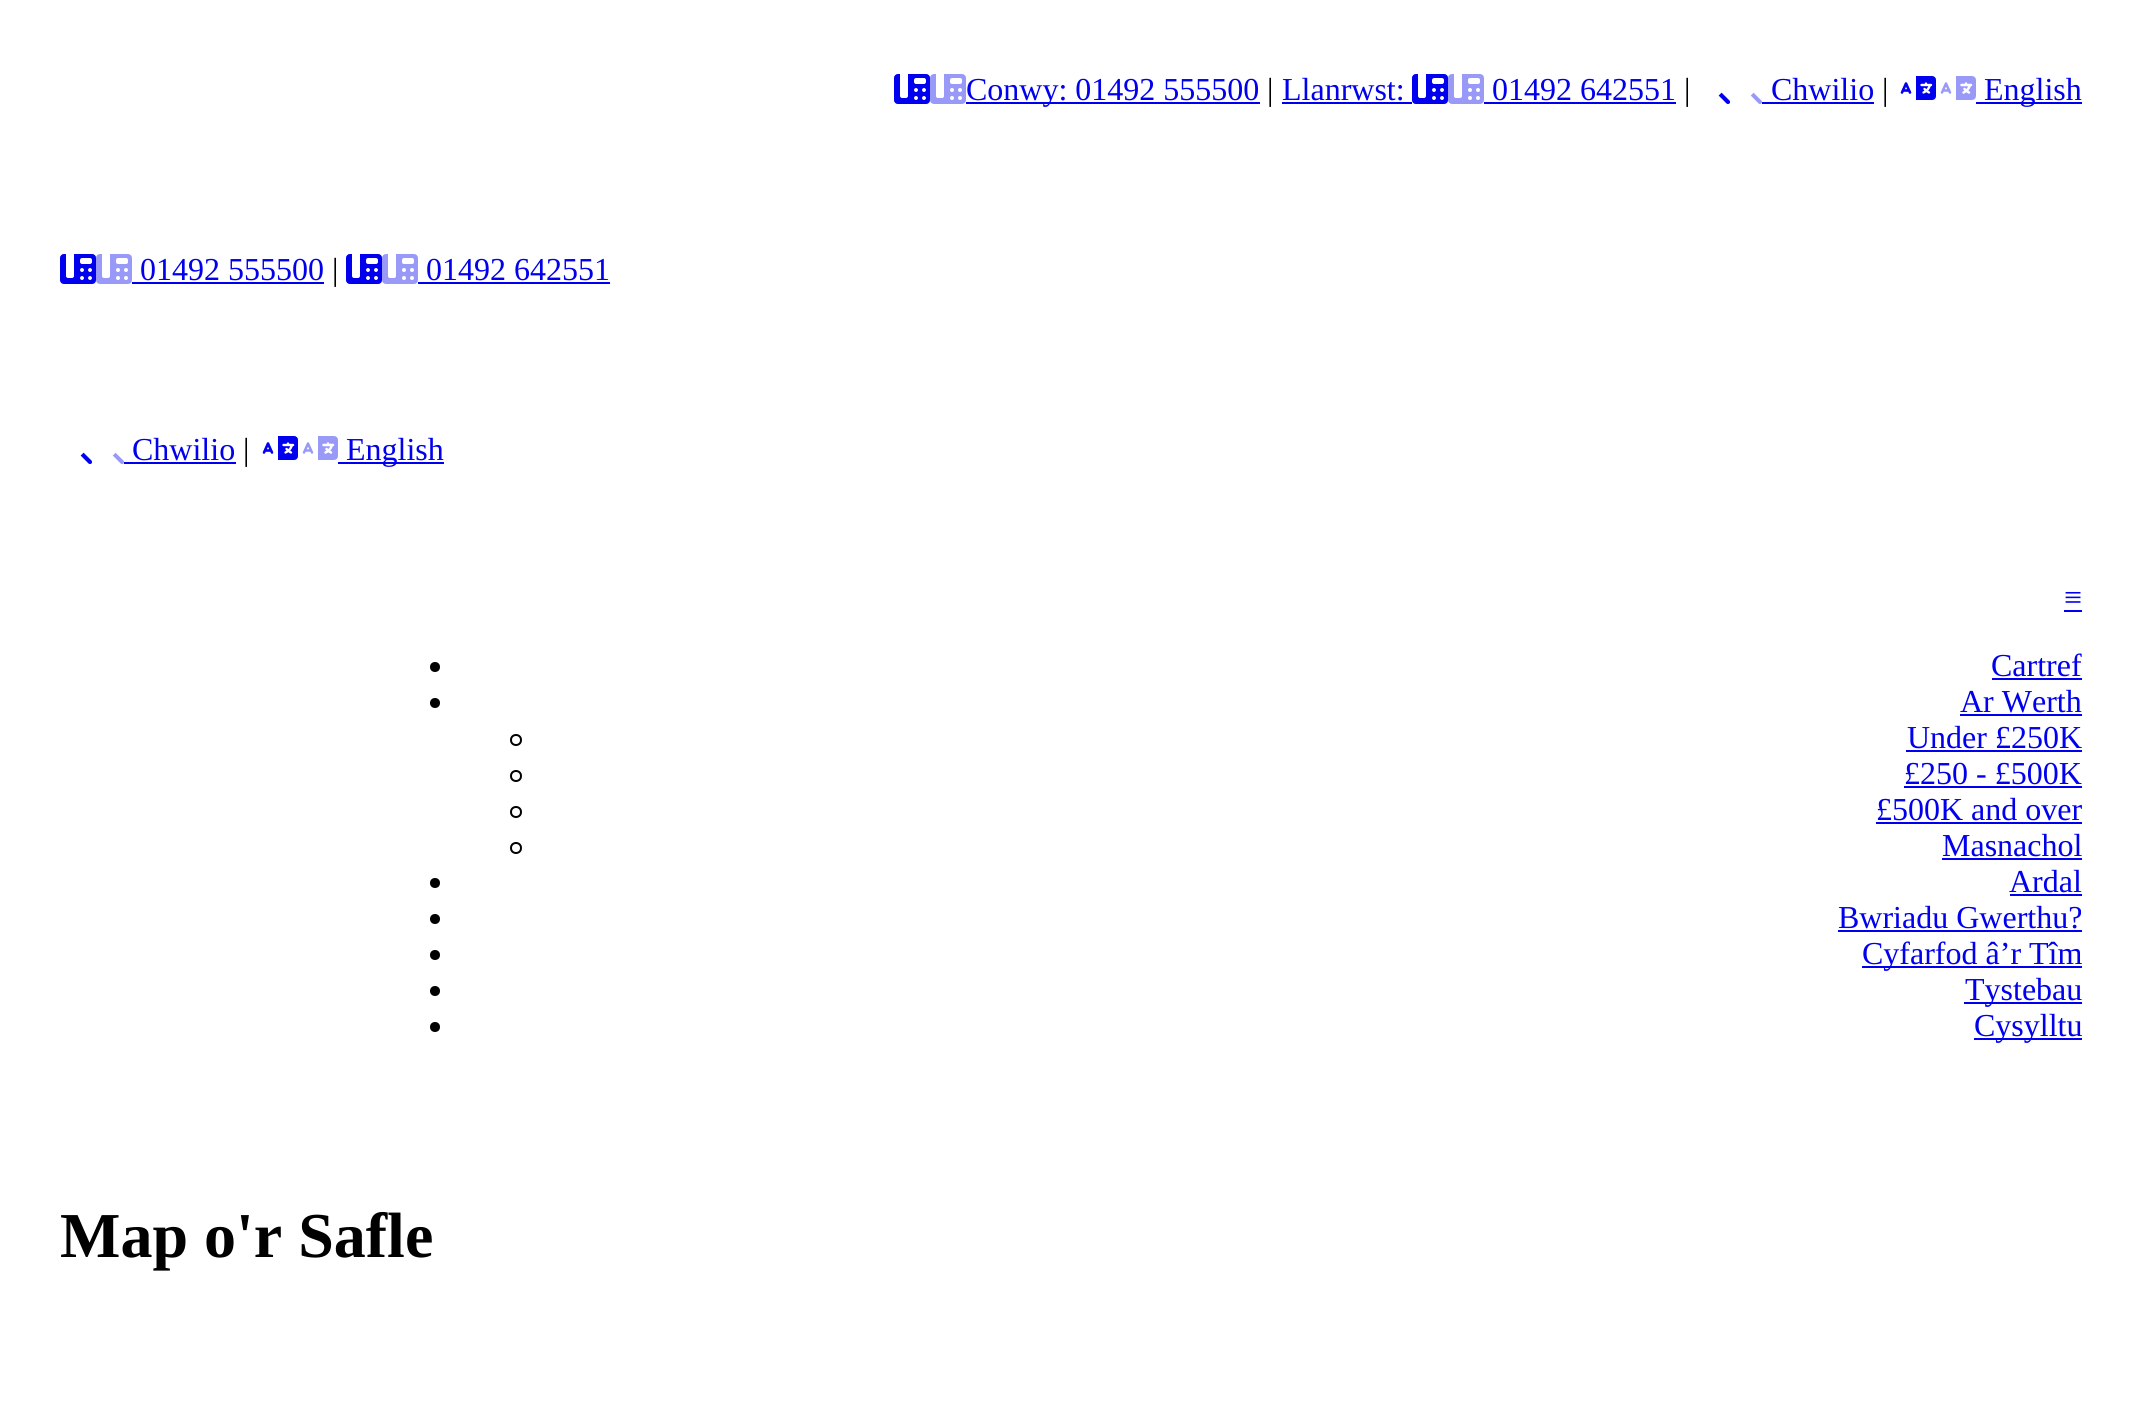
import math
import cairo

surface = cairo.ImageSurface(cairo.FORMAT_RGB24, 2141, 1410)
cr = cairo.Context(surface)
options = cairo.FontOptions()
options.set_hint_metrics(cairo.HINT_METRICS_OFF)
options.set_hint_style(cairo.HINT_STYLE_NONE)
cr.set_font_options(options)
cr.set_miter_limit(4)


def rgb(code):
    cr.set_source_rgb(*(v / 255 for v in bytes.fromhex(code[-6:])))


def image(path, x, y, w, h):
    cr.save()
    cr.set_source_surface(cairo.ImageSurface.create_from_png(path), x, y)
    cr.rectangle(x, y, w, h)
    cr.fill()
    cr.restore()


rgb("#ffffff")
cr.paint()
image("img/1.png", 894, 74, 36, 30)
image("img/2.png", 894, 74, 72, 30)
rgb("#0000ee")
cr.rectangle(966, 102, 294, 2)
cr.fill()
cr.rectangle(1282, 102, 130, 2)
cr.fill()
image("img/1.png", 1412, 74, 36, 30)
image("img/2.png", 1412, 74, 72, 30)
cr.rectangle(1484, 102, 192, 2)
cr.fill()
image("img/3.png", 1718, 92, 12, 12)
image("img/4.png", 1718, 92, 44, 12)
cr.rectangle(1762, 102, 112, 2)
cr.fill()
image("img/5.png", 1900, 76, 36, 24)
image("img/6.png", 1900, 76, 76, 24)
cr.rectangle(1976, 102, 106, 2)
cr.fill()
image("img/1.png", 60, 254, 36, 30)
image("img/2.png", 60, 254, 72, 30)
cr.rectangle(132, 282, 192, 2)
cr.fill()
image("img/1.png", 346, 254, 36, 30)
image("img/2.png", 346, 254, 72, 30)
cr.rectangle(418, 282, 192, 2)
cr.fill()
image("img/3.png", 80, 452, 12, 12)
image("img/4.png", 80, 452, 44, 12)
cr.rectangle(124, 462, 112, 2)
cr.fill()
image("img/5.png", 262, 436, 36, 24)
image("img/6.png", 262, 436, 76, 24)
cr.rectangle(338, 462, 106, 2)
cr.fill()
cr.rectangle(2064, 610, 18, 2)
cr.fill()
rgb("#000000")
cr.arc(435, 667, 5, 0, 2 * math.pi)
cr.fill()
rgb("#0000ee")
cr.rectangle(1992, 678, 90, 2)
cr.fill()
rgb("#000000")
cr.arc(435, 703, 5, 0, 2 * math.pi)
cr.fill()
rgb("#0000ee")
cr.rectangle(1960, 714, 122, 2)
cr.fill()
cr.arc(516, 740, 5, 0, 2 * math.pi)
rgb("#000000")
cr.stroke()
rgb("#0000ee")
cr.rectangle(1906, 750, 176, 2)
cr.fill()
cr.arc(516, 776, 5, 0, 2 * math.pi)
rgb("#000000")
cr.stroke()
rgb("#0000ee")
cr.rectangle(1904, 786, 178, 2)
cr.fill()
cr.arc(516, 812, 5, 0, 2 * math.pi)
rgb("#000000")
cr.stroke()
rgb("#0000ee")
cr.rectangle(1876, 822, 206, 2)
cr.fill()
cr.arc(516, 848, 5, 0, 2 * math.pi)
rgb("#000000")
cr.stroke()
rgb("#0000ee")
cr.rectangle(1942, 858, 140, 2)
cr.fill()
rgb("#000000")
cr.arc(435, 883, 5, 0, 2 * math.pi)
cr.fill()
rgb("#0000ee")
cr.rectangle(2010, 894, 72, 2)
cr.fill()
rgb("#000000")
cr.arc(435, 919, 5, 0, 2 * math.pi)
cr.fill()
rgb("#0000ee")
cr.rectangle(1838, 930, 244, 2)
cr.fill()
rgb("#000000")
cr.arc(435, 955, 5, 0, 2 * math.pi)
cr.fill()
rgb("#0000ee")
cr.rectangle(1862, 966, 220, 2)
cr.fill()
rgb("#000000")
cr.arc(435, 991, 5, 0, 2 * math.pi)
cr.fill()
rgb("#0000ee")
cr.rectangle(1964, 1002, 118, 2)
cr.fill()
rgb("#000000")
cr.arc(435, 1027, 5, 0, 2 * math.pi)
cr.fill()
rgb("#0000ee")
cr.rectangle(1974, 1038, 108, 2)
cr.fill()
cr.select_font_face("Liberation Serif")
cr.set_font_size(32)
cr.move_to(966, 100)
cr.show_text("Conwy: 01492 555500")
rgb("#000000")
cr.move_to(1267, 100)
cr.show_text("|")
rgb("#0000ee")
cr.move_to(1282, 100)
cr.show_text("Llanrwst:")
cr.move_to(1492, 100)
cr.show_text("01492 642551")
rgb("#000000")
cr.move_to(1684, 100)
cr.show_text("|")
rgb("#0000ee")
cr.move_to(1771, 100)
cr.show_text("Chwilio")
rgb("#000000")
cr.move_to(1882, 100)
cr.show_text("|")
rgb("#0000ee")
cr.move_to(1984, 100)
cr.show_text("English")
cr.move_to(140, 280)
cr.show_text("01492 555500")
rgb("#000000")
cr.move_to(332, 280)
cr.show_text("|")
rgb("#0000ee")
cr.move_to(426, 280)
cr.show_text("01492 642551")
cr.move_to(132, 460)
cr.show_text("Chwilio")
rgb("#000000")
cr.move_to(243, 460)
cr.show_text("|")
rgb("#0000ee")
for x, y, s in [
    (346, 460, "English"),
    (2064, 608, "≡"),
    (1991, 676, "Cartref"),
    (1960, 712, "Ar Werth"),
    (1907, 748, "Under £250K"),
    (1904, 784, "£250 - £500K"),
    (1876, 820, "£500K and over"),
    (1942, 856, "Masnachol"),
    (2009, 892, "Ardal"),
    (1838, 928, "Bwriadu Gwerthu?"),
    (1862, 964, "Cyfarfod â’r Tîm"),
    (1965, 1000, "Tystebau"),
    (1974, 1036, "Cysylltu"),
]:
    cr.move_to(x, y)
    cr.show_text(s)
cr.select_font_face("Liberation Serif", cairo.FONT_SLANT_NORMAL, cairo.FONT_WEIGHT_BOLD)
cr.set_font_size(64)
rgb("#000000")
cr.move_to(60, 1257)
cr.show_text("Map o'r Safle")
surface.write_to_png("page.png")
